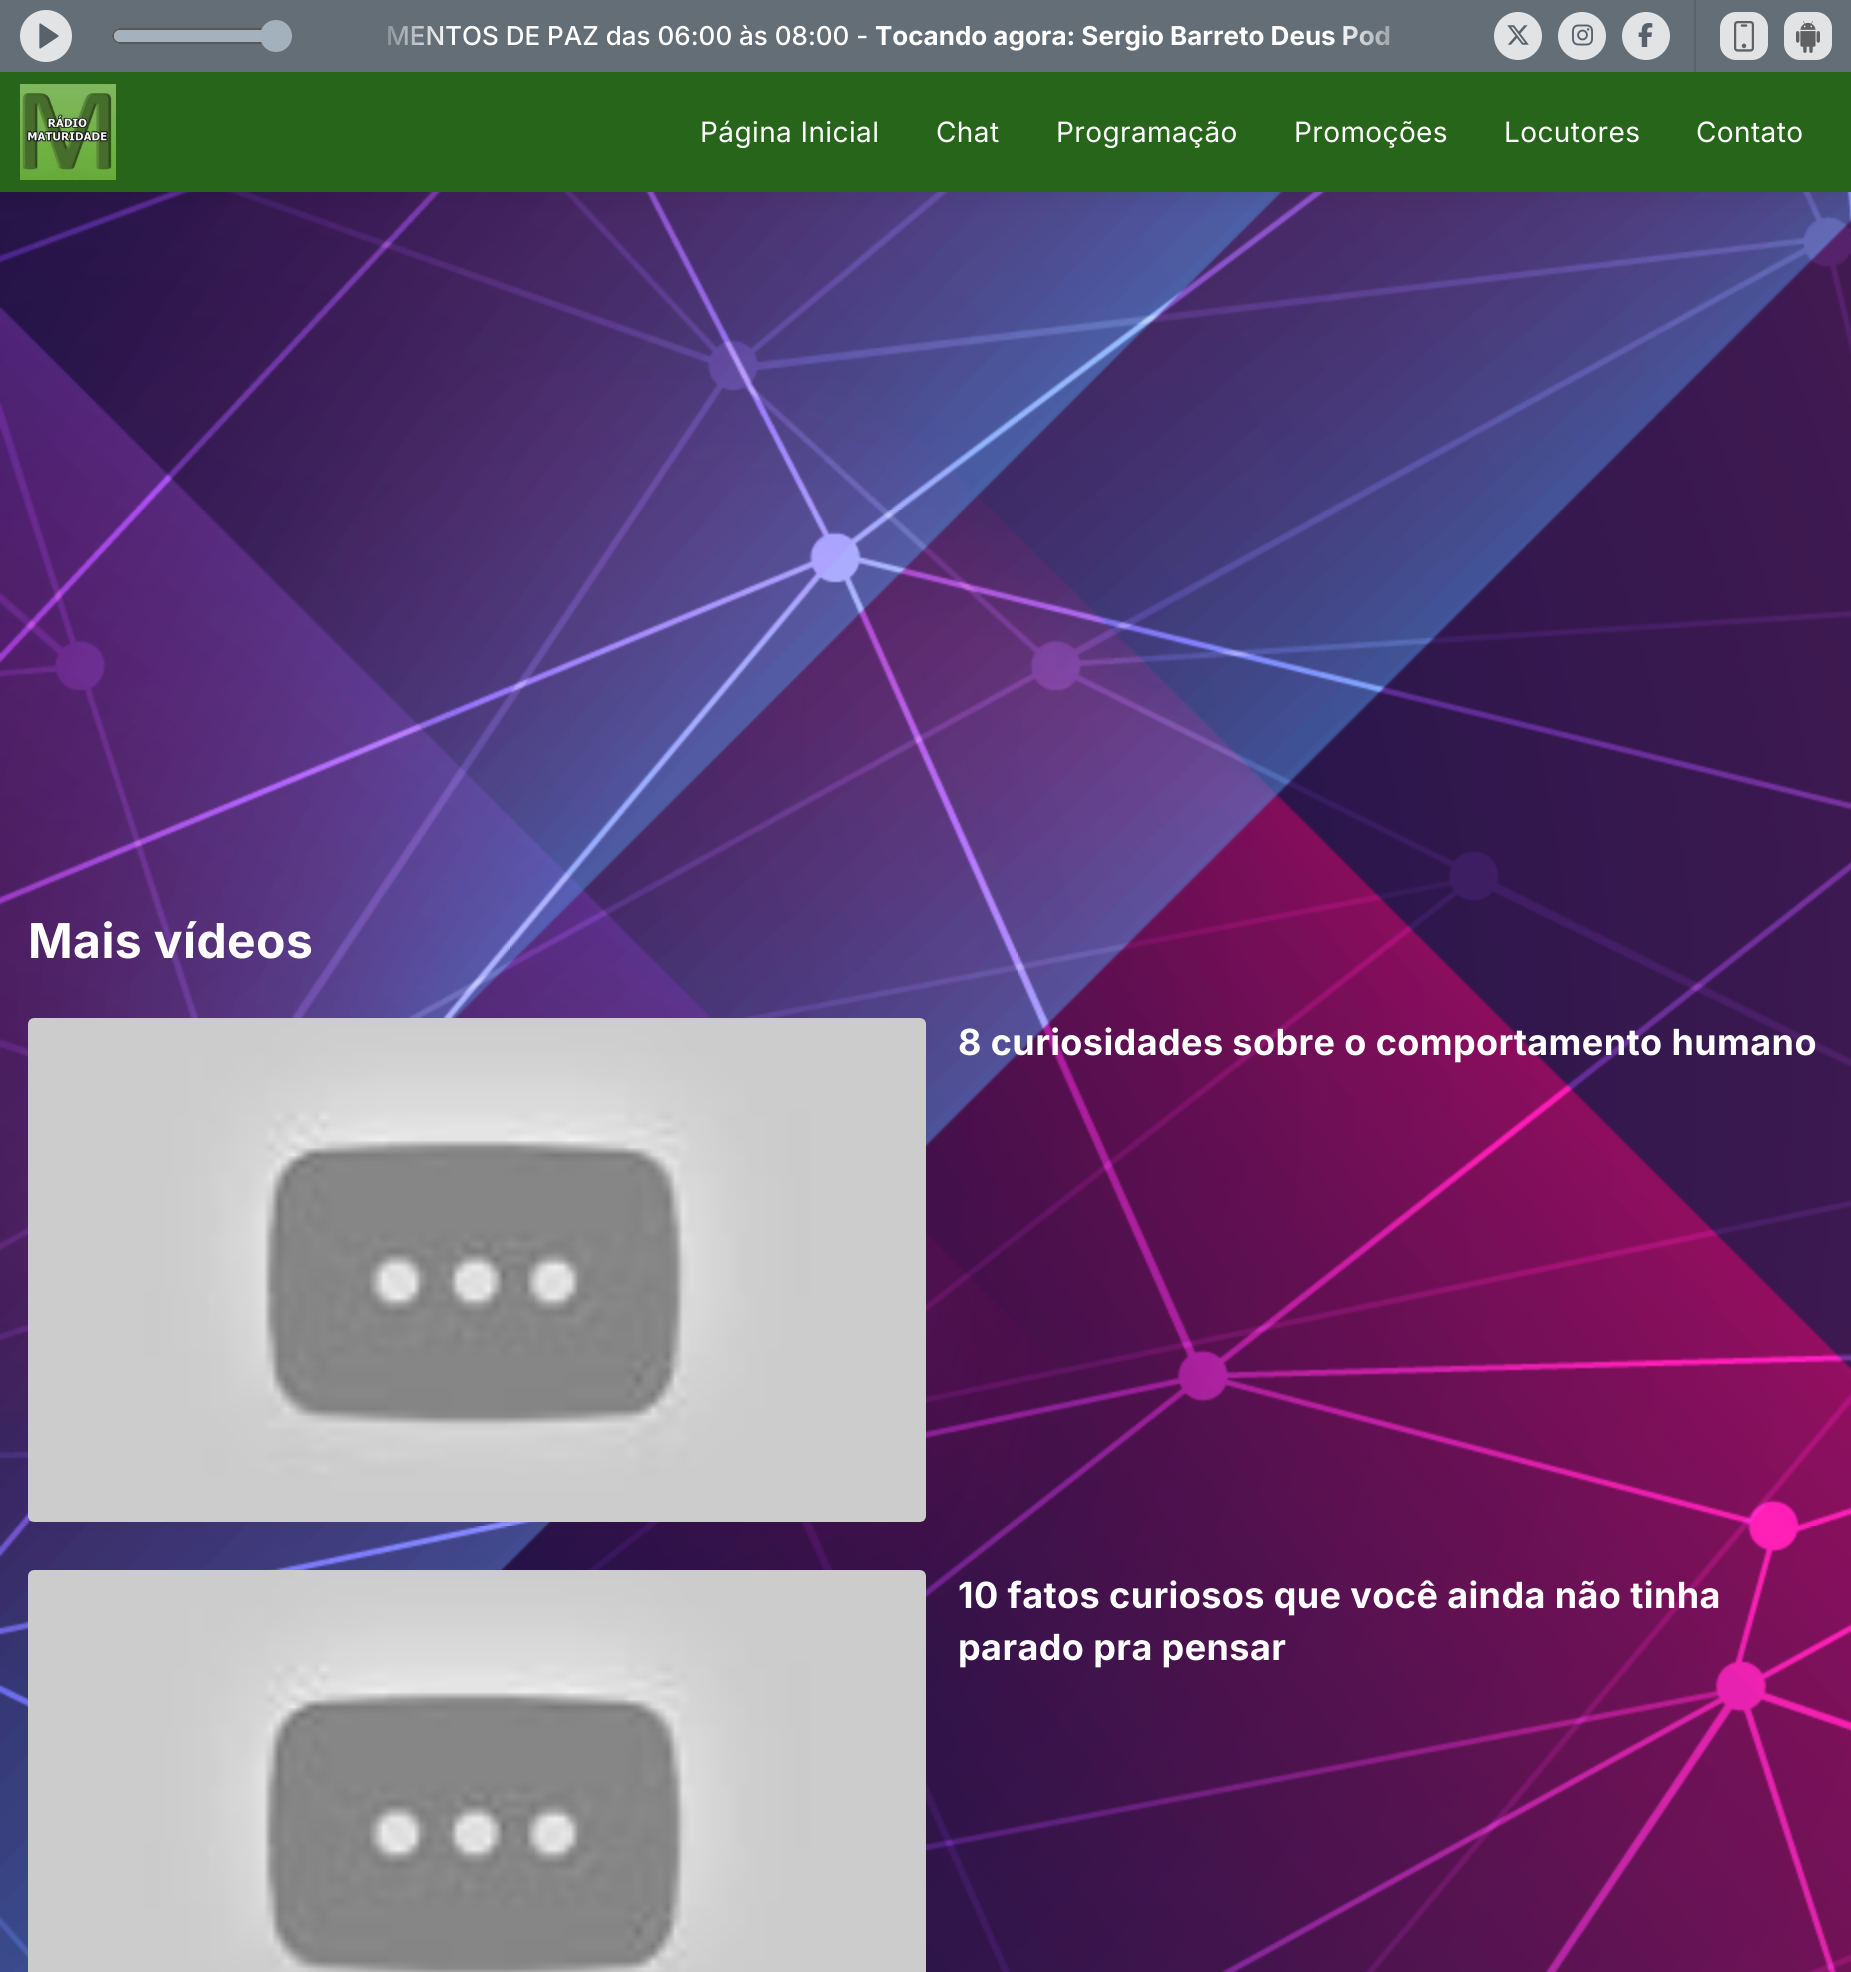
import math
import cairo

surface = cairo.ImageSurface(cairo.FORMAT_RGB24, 1851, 1972)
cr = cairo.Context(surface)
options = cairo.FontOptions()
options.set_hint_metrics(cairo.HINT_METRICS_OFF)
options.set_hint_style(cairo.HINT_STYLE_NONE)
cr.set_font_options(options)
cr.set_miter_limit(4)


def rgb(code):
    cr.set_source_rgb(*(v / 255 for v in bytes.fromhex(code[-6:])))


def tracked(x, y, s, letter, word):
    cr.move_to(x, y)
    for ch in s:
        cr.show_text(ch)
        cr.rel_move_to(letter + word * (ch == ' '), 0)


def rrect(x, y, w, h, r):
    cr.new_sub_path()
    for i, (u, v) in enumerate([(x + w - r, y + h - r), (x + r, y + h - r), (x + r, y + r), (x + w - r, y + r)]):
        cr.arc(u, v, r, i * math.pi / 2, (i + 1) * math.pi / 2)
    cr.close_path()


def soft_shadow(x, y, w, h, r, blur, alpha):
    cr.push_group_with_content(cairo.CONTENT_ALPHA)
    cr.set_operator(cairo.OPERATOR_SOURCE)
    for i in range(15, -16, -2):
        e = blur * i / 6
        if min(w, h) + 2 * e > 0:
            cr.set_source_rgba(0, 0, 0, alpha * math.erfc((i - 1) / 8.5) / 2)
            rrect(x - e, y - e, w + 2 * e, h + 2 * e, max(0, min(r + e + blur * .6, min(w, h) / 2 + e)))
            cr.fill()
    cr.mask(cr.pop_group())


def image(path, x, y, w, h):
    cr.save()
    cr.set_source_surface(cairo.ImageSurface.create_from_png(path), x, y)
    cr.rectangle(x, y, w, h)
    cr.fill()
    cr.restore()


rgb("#ffffff")
cr.paint()
image("img/10.png", 0, 192, 1851, 1780)
rgb("#000000")
soft_shadow(0, 76, 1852, 120, 0, 14, 0.07)
rgb("#646e77")
cr.rectangle(0, 0, 1851, 72)
cr.fill()
rgb("#e2e3e4")
cr.arc(46, 36, 26, 0, 2 * math.pi)
cr.fill()
image("img/1.png", 39, 23, 20, 26)
rgb("#b7bdc2")
rrect(112, 28, 166, 16, 8)
cr.fill()
rrect(113, 29, 164, 14, 7)
cr.set_source_rgba(0.278, 0.278, 0.278, 0.86)
cr.stroke()
cr.set_source_rgba(0.639, 0.694, 0.737, 0.86)
rrect(114, 30, 162, 12, 6)
cr.fill()
rgb("#a3b1bc")
cr.arc(276, 36, 15, 0, 2 * math.pi)
cr.fill_preserve()
cr.stroke()
rgb("#e2e3e4")
cr.arc(1518, 36, 24, 0, 2 * math.pi)
cr.fill()
image("img/2.png", 1507, 25, 22, 20)
cr.arc(1582, 36, 24, 0, 2 * math.pi)
cr.fill()
image("img/3.png", 1572, 24, 21, 22)
cr.arc(1646, 36, 24, 0, 2 * math.pi)
cr.fill()
image("img/4.png", 1638, 23, 15, 24)
rgb("#5a636b")
cr.rectangle(1694, 0, 2, 72)
cr.fill()
rgb("#e2e3e4")
rrect(1720, 12, 48, 48, 16)
cr.fill()
image("img/5.png", 1734, 21, 20, 31)
rrect(1784, 12, 48, 48, 16)
cr.fill()
image("img/6.png", 1796, 21, 24, 32)
rgb("#27661a")
cr.rectangle(0, 72, 1851, 120)
cr.fill()
image("img/7.png", 20, 84, 96, 96)
image("img/8.png", 28, 1018, 898, 504)
image("img/9.png", 28, 1570, 898, 402)
cr.select_font_face("Inter Medium")
cr.set_font_size(26)
rgb("#ffffff")
cr.move_to(386, 45)
cr.show_text("MENTOS DE PAZ das 06:00 às 08:00 -")
cr.select_font_face("Inter", cairo.FONT_SLANT_NORMAL, cairo.FONT_WEIGHT_BOLD)
cr.move_to(875, 45)
cr.show_text("Tocando agora: Sergio Barreto Deus Pod")
gradient = cairo.LinearGradient(342, 36, 452, 36)
gradient.add_color_stop_rgba(0.2, 0.392, 0.431, 0.467, 1)
gradient.add_color_stop_rgba(1, 0.392, 0.431, 0.467, 0)
cr.set_source(gradient)
cr.rectangle(387, 26, 63, 19)
cr.fill()
gradient = cairo.LinearGradient(1446, 36, 1336, 36)
gradient.add_color_stop_rgba(0.2, 0.392, 0.431, 0.467, 1)
gradient.add_color_stop_rgba(1, 0.392, 0.431, 0.467, 0)
cr.set_source(gradient)
cr.rectangle(1343, 26, 47, 20)
cr.fill()
cr.select_font_face("Inter")
cr.set_font_size(28)
rgb("#ffffff")
for x, y, s in [
    (700, 142, "Página Inicial"),
    (936, 142, "Chat"),
    (1056, 142, "Programação"),
    (1294, 142, "Promoções"),
    (1504, 142, "Locutores"),
    (1696, 142, "Contato"),
]:
    tracked(x, y, s, 0.4, 0)
cr.select_font_face("Inter", cairo.FONT_SLANT_NORMAL, cairo.FONT_WEIGHT_BOLD)
cr.set_font_size(48)
tracked(28, 958, "Mais vídeos", 0.4, 0)
cr.set_font_size(36)
for x, y, s in [
    (958, 1055, "8 curiosidades sobre o comportamento humano"),
    (958, 1608, "10 fatos curiosos que você ainda não tinha"),
    (958, 1660, "parado pra pensar"),
]:
    tracked(x, y, s, 0.4, 0)
surface.write_to_png("page.png")
